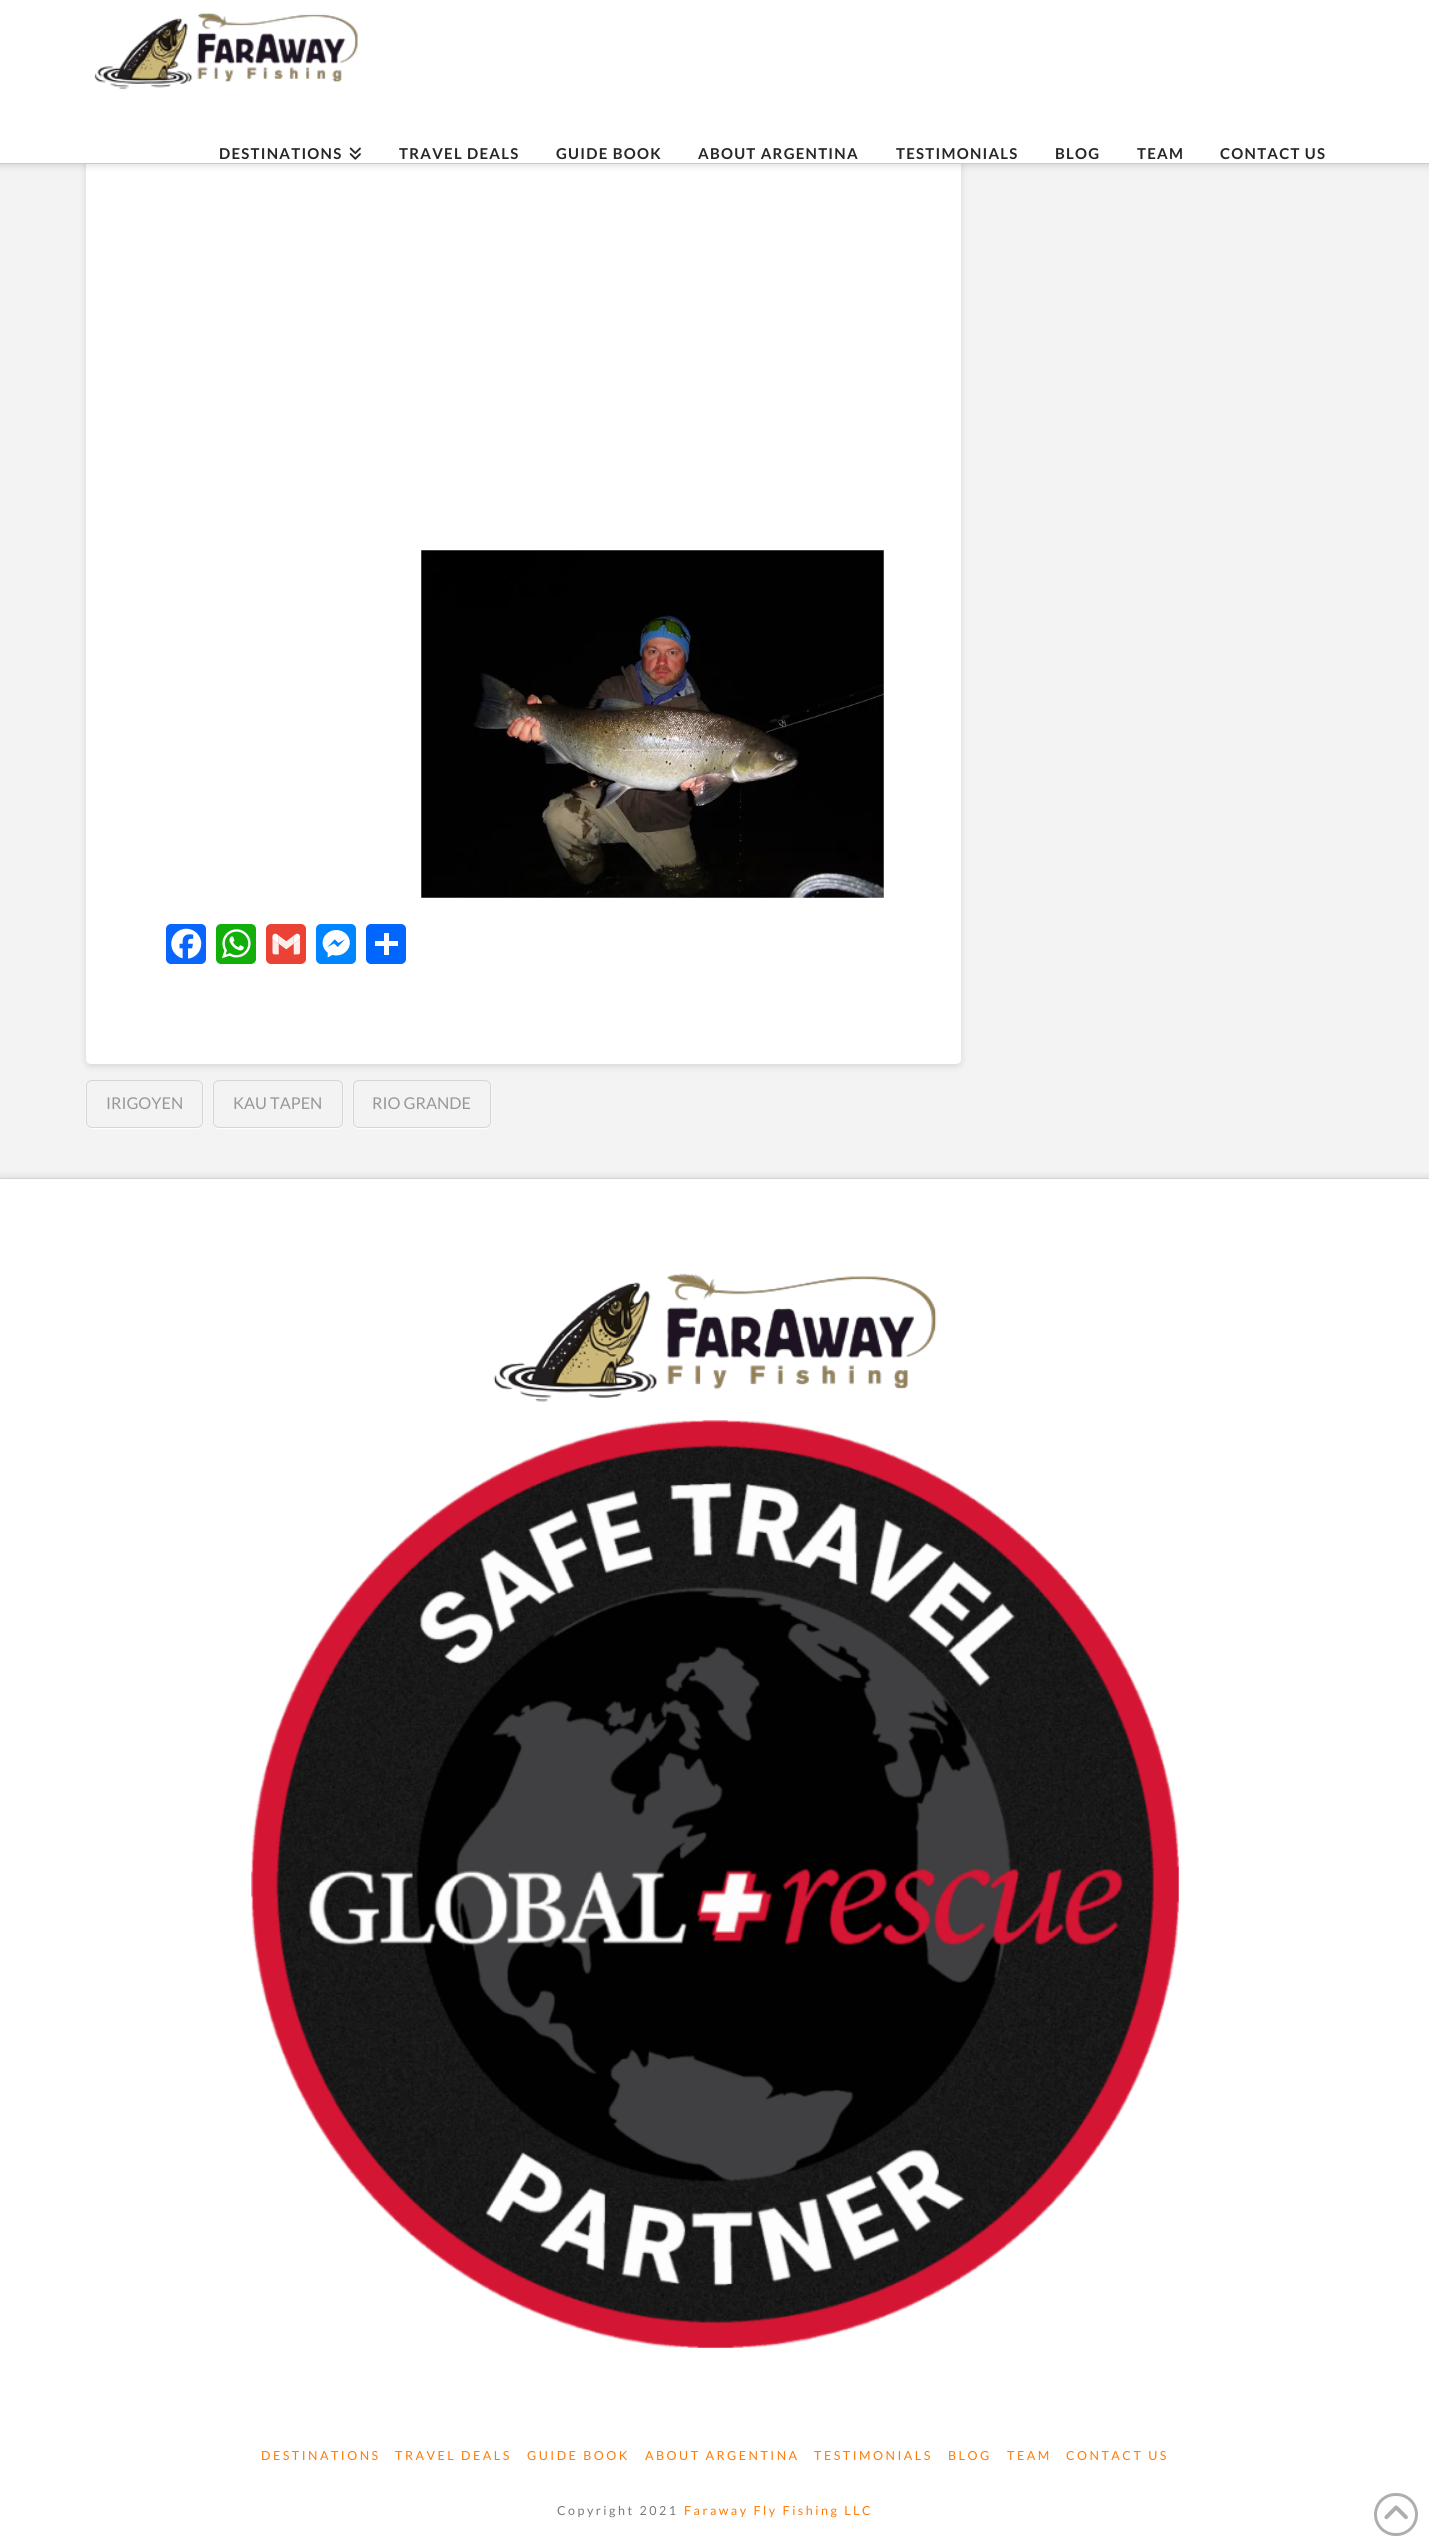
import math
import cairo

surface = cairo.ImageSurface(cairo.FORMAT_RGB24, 1429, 2548)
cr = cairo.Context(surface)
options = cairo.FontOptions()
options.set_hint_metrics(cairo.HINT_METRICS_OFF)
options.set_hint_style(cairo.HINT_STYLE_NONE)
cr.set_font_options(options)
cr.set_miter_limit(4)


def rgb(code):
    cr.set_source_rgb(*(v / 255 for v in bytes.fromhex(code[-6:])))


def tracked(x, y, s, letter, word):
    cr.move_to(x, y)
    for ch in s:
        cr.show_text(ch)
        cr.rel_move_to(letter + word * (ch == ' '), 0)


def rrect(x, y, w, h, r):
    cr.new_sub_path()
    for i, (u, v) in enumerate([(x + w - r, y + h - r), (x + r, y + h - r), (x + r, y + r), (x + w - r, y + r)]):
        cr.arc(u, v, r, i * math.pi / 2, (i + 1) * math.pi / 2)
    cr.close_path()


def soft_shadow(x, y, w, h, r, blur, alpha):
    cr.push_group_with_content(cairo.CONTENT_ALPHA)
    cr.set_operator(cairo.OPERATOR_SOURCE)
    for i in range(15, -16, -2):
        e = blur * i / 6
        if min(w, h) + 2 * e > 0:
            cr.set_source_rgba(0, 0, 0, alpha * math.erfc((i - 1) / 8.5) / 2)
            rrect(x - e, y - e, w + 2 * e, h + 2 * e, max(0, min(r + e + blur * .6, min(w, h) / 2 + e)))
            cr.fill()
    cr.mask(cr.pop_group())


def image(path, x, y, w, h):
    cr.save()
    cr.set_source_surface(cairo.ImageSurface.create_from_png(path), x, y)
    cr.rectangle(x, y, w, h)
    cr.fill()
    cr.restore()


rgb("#f3f3f3")
cr.paint()
rgb("#000000")
soft_shadow(86, -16, 875, 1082, 5, 3.5, 0.13)
rgb("#ffffff")
cr.new_path()
cr.move_to(86, -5)
cr.line_to(961, -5)
cr.line_to(961, 1059)
cr.curve_to(961, 1062, 959, 1064, 956, 1064)
cr.line_to(91, 1064)
cr.curve_to(88, 1064, 86, 1062, 86, 1059)
cr.close_path()
cr.fill()
rgb("#000000")
soft_shadow(0, 3, 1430, 163, 0, 3.5, 0.13)
rgb("#ffffff")
cr.rectangle(0, 0, 1429, 163)
cr.fill()
rgb("#cccccc")
cr.rectangle(0, 163, 1429, 1)
cr.fill()
image("img/1.png", 94, 13, 264, 77)
image("img/2.png", 349, 147, 12, 13)
image("img/3.png", 421, 550, 463, 348)
rgb("#0866ff")
rrect(166, 924, 40, 40, 5)
cr.fill()
image("img/4.png", 171, 928, 31, 31)
rgb("#12af0a")
rrect(216, 924, 40, 40, 5)
cr.fill()
image("img/5.png", 222, 929, 29, 30)
rgb("#ea4335")
rrect(266, 924, 40, 40, 5)
cr.fill()
image("img/6.png", 272, 933, 28, 22)
rgb("#0084ff")
rrect(316, 924, 40, 40, 5)
cr.fill()
image("img/7.png", 322, 930, 28, 28)
rgb("#0166ff")
rrect(366, 924, 40, 40, 5)
cr.fill()
rgb("#ffffff")
cr.rectangle(384, 933, 5, 22)
cr.fill()
cr.rectangle(375, 941, 23, 5)
cr.fill()
cr.save()
cr.set_fill_rule(cairo.FILL_RULE_EVEN_ODD)
cr.new_path()
cr.move_to(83, 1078)
cr.line_to(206, 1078)
cr.line_to(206, 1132)
cr.line_to(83, 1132)
cr.close_path()
cr.move_to(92, 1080)
cr.line_to(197, 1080)
cr.curve_to(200.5, 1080, 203, 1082.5, 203, 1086)
cr.line_to(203, 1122)
cr.curve_to(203, 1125.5, 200.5, 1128, 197, 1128)
cr.line_to(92, 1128)
cr.curve_to(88.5, 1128, 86, 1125.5, 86, 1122)
cr.line_to(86, 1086)
cr.curve_to(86, 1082.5, 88.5, 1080, 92, 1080)
cr.close_path()
cr.clip()
rgb("#ffffff")
soft_shadow(86, 1081, 117, 48, 6, 0.5, 0.95)
cr.restore()
rrect(86.5, 1080.5, 116, 47, 5.5)
cr.set_source_rgba(0, 0, 0, 0.12)
cr.set_line_width(1)
cr.stroke()
cr.save()
cr.set_fill_rule(cairo.FILL_RULE_EVEN_ODD)
cr.new_path()
cr.move_to(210, 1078)
cr.line_to(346, 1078)
cr.line_to(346, 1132)
cr.line_to(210, 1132)
cr.close_path()
cr.move_to(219, 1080)
cr.line_to(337, 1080)
cr.curve_to(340.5, 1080, 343, 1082.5, 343, 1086)
cr.line_to(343, 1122)
cr.curve_to(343, 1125.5, 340.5, 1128, 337, 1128)
cr.line_to(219, 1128)
cr.curve_to(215.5, 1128, 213, 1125.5, 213, 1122)
cr.line_to(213, 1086)
cr.curve_to(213, 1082.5, 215.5, 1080, 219, 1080)
cr.close_path()
cr.clip()
rgb("#ffffff")
soft_shadow(213, 1081, 130, 48, 6, 0.5, 0.95)
cr.restore()
rrect(213.5, 1080.5, 129, 47, 5.5)
cr.stroke()
cr.save()
cr.set_fill_rule(cairo.FILL_RULE_EVEN_ODD)
cr.new_path()
cr.move_to(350, 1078)
cr.line_to(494, 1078)
cr.line_to(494, 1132)
cr.line_to(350, 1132)
cr.close_path()
cr.move_to(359, 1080)
cr.line_to(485, 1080)
cr.curve_to(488.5, 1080, 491, 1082.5, 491, 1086)
cr.line_to(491, 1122)
cr.curve_to(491, 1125.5, 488.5, 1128, 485, 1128)
cr.line_to(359, 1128)
cr.curve_to(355.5, 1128, 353, 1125.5, 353, 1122)
cr.line_to(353, 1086)
cr.curve_to(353, 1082.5, 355.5, 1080, 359, 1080)
cr.close_path()
cr.clip()
rgb("#ffffff")
soft_shadow(353, 1081, 138, 48, 6, 0.5, 0.95)
cr.restore()
rrect(353.5, 1080.5, 137, 47, 5.5)
cr.stroke()
rgb("#000000")
soft_shadow(0, 1175, 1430, 1245, 0, 2.5, 0.07)
rgb("#ffffff")
cr.rectangle(0, 1179, 1429, 1369)
cr.fill()
rgb("#d4d4d4")
cr.rectangle(0, 1178, 1429, 1)
cr.fill()
image("img/8.png", 493, 1273, 444, 129)
image("img/9.png", 251, 1420, 928, 928)
rrect(1375.5, 2494.5, 41, 40, 20)
rgb("#aeaeae")
cr.set_line_width(3)
cr.stroke()
image("img/10.png", 1384, 2505, 24, 15)
cr.select_font_face("Lato", cairo.FONT_SLANT_NORMAL, cairo.FONT_WEIGHT_BOLD)
cr.set_font_size(15)
rgb("#272727")
for x, y, s in [
    (219, 159, "DESTINATIONS"),
    (399, 159, "TRAVEL DEALS"),
    (556, 159, "GUIDE BOOK"),
    (698, 159, "ABOUT ARGENTINA"),
    (896, 159, "TESTIMONIALS"),
    (1055, 159, "BLOG"),
    (1137, 159, "TEAM"),
    (1220, 159, "CONTACT US"),
]:
    tracked(x, y, s, 1.25, 0)
cr.select_font_face("Lato")
cr.set_font_size(16.25)
rgb("#989898")
for x, y, s in [
    (106, 1109, "IRIGOYEN"),
    (233, 1109, "KAU TAPEN"),
    (372, 1109, "RIO GRANDE"),
]:
    cr.move_to(x, y)
    cr.show_text(s)
cr.set_font_size(12.5)
rgb("#ff7b07")
for x, y, s in [
    (261, 2460, "DESTINATIONS"),
    (395, 2460, "TRAVEL DEALS"),
    (527, 2460, "GUIDE BOOK"),
    (645, 2460, "ABOUT ARGENTINA"),
    (814, 2460, "TESTIMONIALS"),
    (948, 2460, "BLOG"),
    (1007, 2460, "TEAM"),
    (1066, 2460, "CONTACT US"),
]:
    tracked(x, y, s, 2.5, 0)
rgb("#7a7a7a")
tracked(557, 2515, "Copyright 2021", 2.5, 0)
rgb("#ff7b07")
tracked(684, 2515, "Faraway Fly Fishing LLC", 2.5, 0)
surface.write_to_png("page.png")
